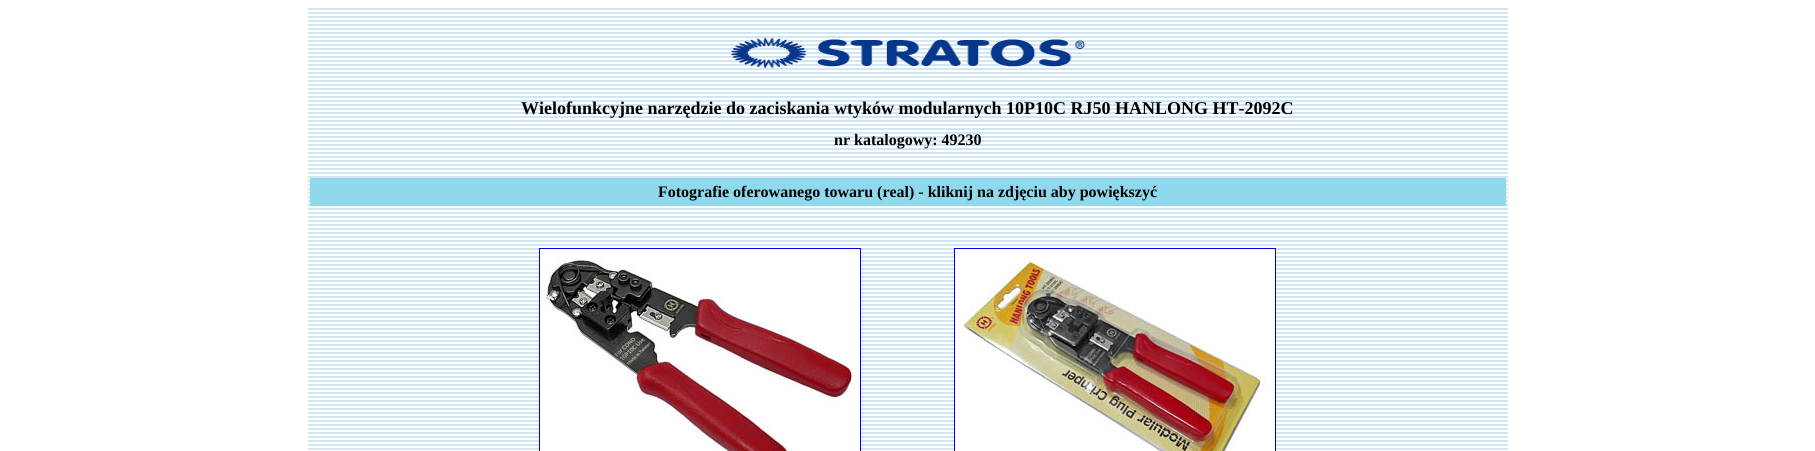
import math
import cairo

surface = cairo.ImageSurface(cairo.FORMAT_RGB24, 1815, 451)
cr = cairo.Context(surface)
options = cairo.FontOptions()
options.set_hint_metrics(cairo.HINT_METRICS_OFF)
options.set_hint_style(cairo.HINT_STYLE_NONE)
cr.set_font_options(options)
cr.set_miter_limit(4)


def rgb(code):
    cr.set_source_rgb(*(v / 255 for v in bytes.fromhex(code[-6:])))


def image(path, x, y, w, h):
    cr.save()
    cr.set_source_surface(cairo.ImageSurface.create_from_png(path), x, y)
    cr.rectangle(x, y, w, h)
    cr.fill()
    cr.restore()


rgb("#ffffff")
cr.paint()
image("img/1.png", 308, 8, 1200, 442)
image("img/2.png", 731, 38, 354, 30)
rgb("#8ed9ec")
cr.rectangle(310, 178, 1196, 28)
cr.fill()
cr.rectangle(539.5, 248.5, 321, 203)
rgb("#0000ee")
cr.set_line_width(1)
cr.stroke()
image("img/3.png", 540, 249, 320, 202)
cr.rectangle(954.5, 248.5, 321, 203)
cr.stroke()
image("img/4.png", 955, 249, 320, 202)
cr.select_font_face("Liberation Serif", cairo.FONT_SLANT_NORMAL, cairo.FONT_WEIGHT_BOLD)
cr.set_font_size(18)
rgb("#000000")
cr.move_to(521, 114)
cr.show_text("Wielofunkcyjne narzędzie do zaciskania wtyków modularnych 10P10C RJ50 HANLONG HT-2092C")
cr.set_font_size(16)
cr.move_to(834, 145)
cr.show_text("nr katalogowy: 49230")
cr.move_to(658, 197)
cr.show_text("Fotografie oferowanego towaru (real) - kliknij na zdjęciu aby powiększyć")
surface.write_to_png("page.png")
